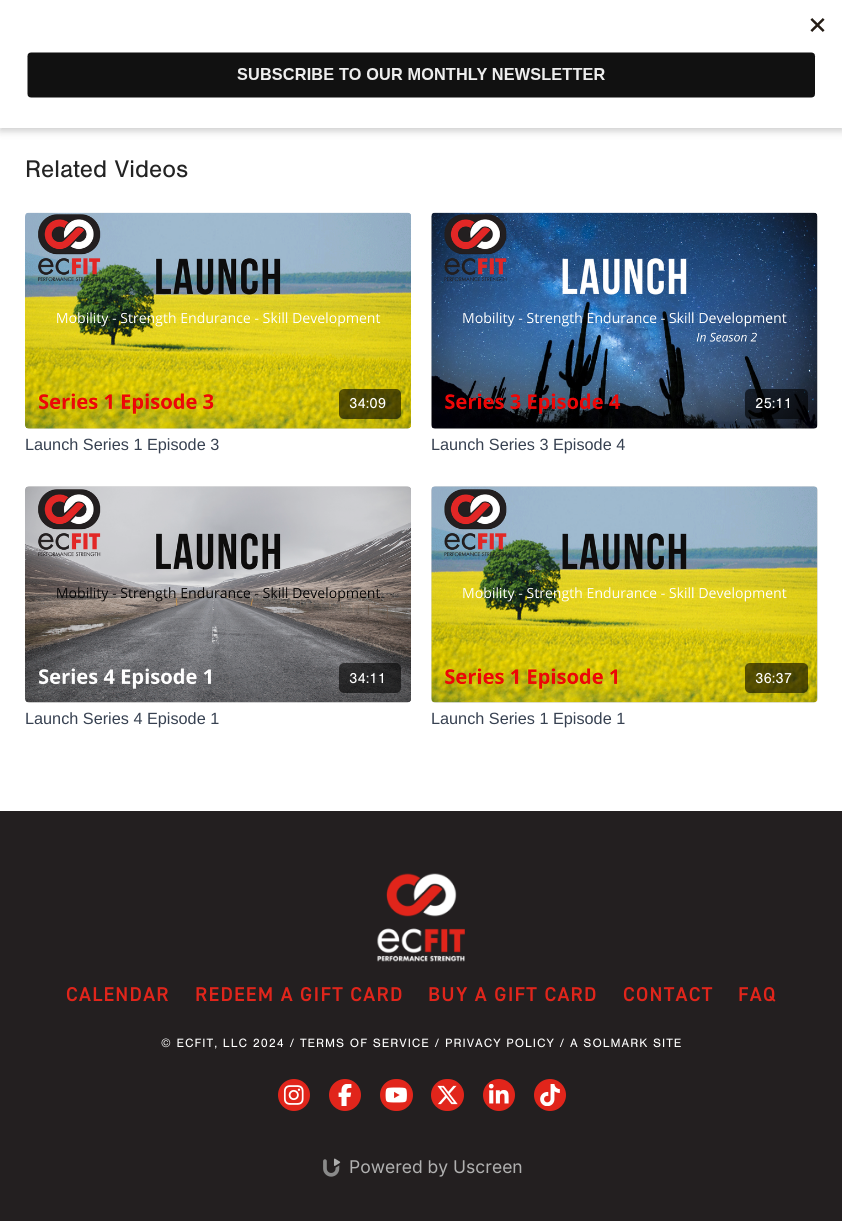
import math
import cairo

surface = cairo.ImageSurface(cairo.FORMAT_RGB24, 842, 1221)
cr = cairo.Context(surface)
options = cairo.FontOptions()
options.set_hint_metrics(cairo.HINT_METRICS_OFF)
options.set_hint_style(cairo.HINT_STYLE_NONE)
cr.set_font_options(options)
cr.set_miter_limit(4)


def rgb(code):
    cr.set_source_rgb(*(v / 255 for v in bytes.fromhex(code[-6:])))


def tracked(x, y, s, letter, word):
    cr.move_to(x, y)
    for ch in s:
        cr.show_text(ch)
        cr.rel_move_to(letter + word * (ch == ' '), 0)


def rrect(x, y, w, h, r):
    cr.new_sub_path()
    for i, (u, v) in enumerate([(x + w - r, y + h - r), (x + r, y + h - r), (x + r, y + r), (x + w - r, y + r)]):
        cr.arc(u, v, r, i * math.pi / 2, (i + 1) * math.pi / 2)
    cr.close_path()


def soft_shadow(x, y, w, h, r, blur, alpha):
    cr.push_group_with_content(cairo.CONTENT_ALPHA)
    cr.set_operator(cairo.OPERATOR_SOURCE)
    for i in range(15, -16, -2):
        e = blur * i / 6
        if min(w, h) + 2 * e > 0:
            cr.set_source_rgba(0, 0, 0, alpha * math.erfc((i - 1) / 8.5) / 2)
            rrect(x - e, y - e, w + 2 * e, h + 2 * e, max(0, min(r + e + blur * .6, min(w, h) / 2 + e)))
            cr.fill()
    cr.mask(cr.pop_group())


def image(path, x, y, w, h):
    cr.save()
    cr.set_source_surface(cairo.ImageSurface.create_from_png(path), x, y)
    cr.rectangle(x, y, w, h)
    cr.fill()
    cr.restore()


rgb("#ffffff")
cr.paint()
rgb("#000000")
soft_shadow(0, 4, 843, 127, 0, 4, 0.2)
rgb("#ffffff")
cr.rectangle(0, 0, 842, 128)
cr.fill()
image("img/1.png", 27, 18, 798, 80)
gradient = cairo.LinearGradient(25, 321, 411, 321)
gradient.add_color_stop_rgba(0.08, 0.871, 0.871, 0.871, 1)
gradient.add_color_stop_rgba(0.18, 0.882, 0.882, 0.882, 1)
gradient.add_color_stop_rgba(0.33, 0.89, 0.89, 0.89, 1)
cr.set_source(gradient)
rrect(25, 213, 386, 216, 5)
cr.fill()
image("img/2.png", 25, 212, 386, 217)
cr.set_source_rgba(0, 0, 0, 0.6)
rrect(339, 389, 62, 30, 5)
cr.fill()
gradient = cairo.LinearGradient(431, 321, 818, 321)
gradient.add_color_stop_rgba(0.08, 0.871, 0.871, 0.871, 1)
gradient.add_color_stop_rgba(0.18, 0.882, 0.882, 0.882, 1)
gradient.add_color_stop_rgba(0.33, 0.89, 0.89, 0.89, 1)
cr.set_source(gradient)
rrect(431, 213, 387, 216, 5)
cr.fill()
image("img/3.png", 431, 212, 387, 217)
cr.set_source_rgba(0, 0, 0, 0.6)
rrect(745, 389, 63, 30, 5)
cr.fill()
gradient = cairo.LinearGradient(25, 594, 411, 594)
gradient.add_color_stop_rgba(0.08, 0.871, 0.871, 0.871, 1)
gradient.add_color_stop_rgba(0.18, 0.882, 0.882, 0.882, 1)
gradient.add_color_stop_rgba(0.33, 0.89, 0.89, 0.89, 1)
cr.set_source(gradient)
rrect(25, 486, 386, 217, 5)
cr.fill()
image("img/4.png", 25, 486, 386, 217)
cr.set_source_rgba(0, 0, 0, 0.6)
rrect(339, 663, 62, 30, 5)
cr.fill()
gradient = cairo.LinearGradient(431, 594, 818, 594)
gradient.add_color_stop_rgba(0.08, 0.871, 0.871, 0.871, 1)
gradient.add_color_stop_rgba(0.18, 0.882, 0.882, 0.882, 1)
gradient.add_color_stop_rgba(0.33, 0.89, 0.89, 0.89, 1)
cr.set_source(gradient)
rrect(431, 486, 387, 217, 5)
cr.fill()
image("img/5.png", 431, 486, 387, 217)
cr.set_source_rgba(0, 0, 0, 0.6)
rrect(745, 663, 63, 30, 5)
cr.fill()
rgb("#231f20")
cr.rectangle(0, 811, 842, 410)
cr.fill()
image("img/6.png", 377, 873, 88, 89)
rgb("#e1251b")
cr.arc(294, 1095, 16, 0, 2 * math.pi)
cr.fill()
image("img/7.png", 283, 1085, 21, 20)
cr.arc(345, 1095, 16, 0, 2 * math.pi)
cr.fill()
image("img/8.png", 338, 1084, 14, 22)
rrect(380, 1079, 33, 32, 16)
cr.fill()
image("img/9.png", 385, 1087, 22, 16)
rrect(431, 1079, 33, 32, 16)
cr.fill()
image("img/10.png", 437, 1085, 21, 20)
cr.arc(499, 1095, 16, 0, 2 * math.pi)
cr.fill()
image("img/11.png", 488, 1084, 21, 20)
cr.arc(550, 1095, 16, 0, 2 * math.pi)
cr.fill()
image("img/12.png", 540, 1084, 20, 22)
image("img/13.png", 323, 1158, 18, 19)
cr.select_font_face("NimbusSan")
cr.set_font_size(25)
rgb("#232323")
cr.move_to(25, 177)
cr.show_text("Related Videos")
cr.set_font_size(15)
rgb("#ffffff")
cr.move_to(349, 408)
cr.show_text("34:09")
cr.select_font_face("Liberation Sans")
cr.set_font_size(16.25)
rgb("#374151")
cr.move_to(25, 450)
cr.show_text("Launch Series 1 Episode 3")
cr.select_font_face("NimbusSan")
cr.set_font_size(15)
rgb("#ffffff")
cr.move_to(755, 408)
cr.show_text("25:11")
cr.select_font_face("Liberation Sans")
cr.set_font_size(16.25)
rgb("#374151")
cr.move_to(431, 450)
cr.show_text("Launch Series 3 Episode 4")
cr.select_font_face("NimbusSan")
cr.set_font_size(15)
rgb("#ffffff")
cr.move_to(349, 683)
cr.show_text("34:11")
cr.select_font_face("Liberation Sans")
cr.set_font_size(16.25)
rgb("#374151")
cr.move_to(25, 724)
cr.show_text("Launch Series 4 Episode 1")
cr.select_font_face("NimbusSan")
cr.set_font_size(15)
rgb("#ffffff")
cr.move_to(755, 683)
cr.show_text("36:37")
cr.select_font_face("Liberation Sans")
cr.set_font_size(16.25)
rgb("#374151")
cr.move_to(431, 724)
cr.show_text("Launch Series 1 Episode 1")
cr.select_font_face("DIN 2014 SemiBold")
cr.set_font_size(20)
rgb("#e1251b")
for x, y, s in [
    (66, 1001, "CALENDAR"),
    (195, 1001, "REDEEM A GIFT CARD"),
    (428, 1001, "BUY A GIFT CARD"),
    (623, 1001, "CONTACT"),
    (738, 1001, "FAQ"),
]:
    tracked(x, y, s, 1.25, 0)
cr.select_font_face("NimbusSan")
cr.set_font_size(12.5)
rgb("#ffffff")
tracked(161, 1047, "© ECFIT, LLC 2024 / TERMS OF SERVICE / PRIVACY POLICY / A SOLMARK SITE", 1, 0)
cr.select_font_face("Inter")
cr.set_font_size(17.5)
rgb("#b0b0b0")
cr.move_to(349, 1173)
cr.show_text("Powered by Uscreen")
surface.write_to_png("page.png")
